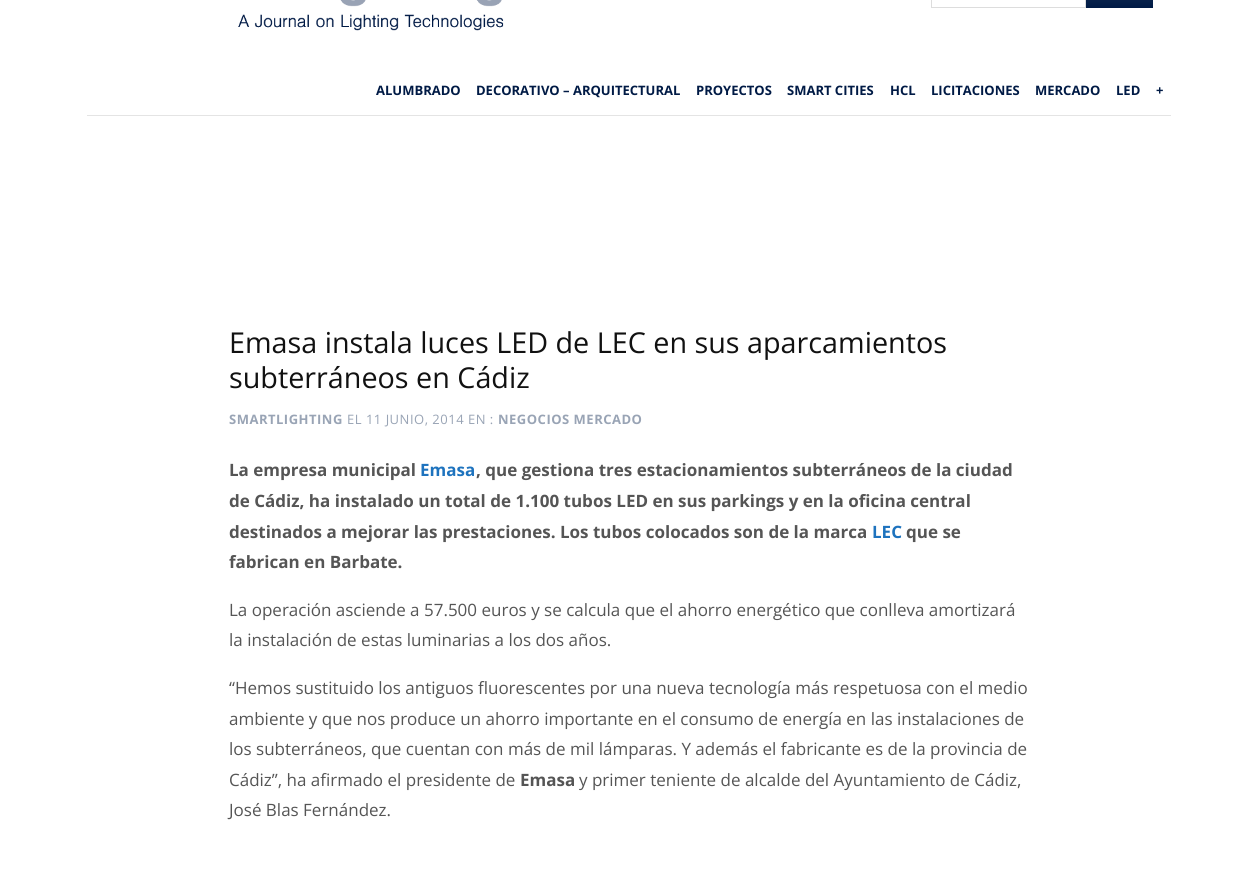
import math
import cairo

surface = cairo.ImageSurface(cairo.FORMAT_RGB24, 1258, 878)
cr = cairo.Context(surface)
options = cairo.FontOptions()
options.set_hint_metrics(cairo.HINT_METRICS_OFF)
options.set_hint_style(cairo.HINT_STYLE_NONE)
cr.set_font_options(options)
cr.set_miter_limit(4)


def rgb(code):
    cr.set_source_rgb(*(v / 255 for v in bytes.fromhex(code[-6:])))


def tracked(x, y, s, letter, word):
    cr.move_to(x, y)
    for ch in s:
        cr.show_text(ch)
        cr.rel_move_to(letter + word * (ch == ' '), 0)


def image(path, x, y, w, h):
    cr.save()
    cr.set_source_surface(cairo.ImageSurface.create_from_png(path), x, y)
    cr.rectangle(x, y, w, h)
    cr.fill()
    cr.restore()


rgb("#ffffff")
cr.paint()
image("img/1.png", 238, 0, 266, 31)
cr.rectangle(931.5, -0.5, 154, 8)
rgb("#dddddd")
cr.set_line_width(1)
cr.stroke()
gradient = cairo.LinearGradient(1120, -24, 1120, 8)
gradient.add_color_stop_rgba(0, 0.122, 0.208, 0.357, 1)
gradient.add_color_stop_rgba(1, 0, 0.102, 0.271, 1)
cr.set_source(gradient)
cr.rectangle(1086, 0, 67, 8)
cr.fill()
rgb("#e4e4e4")
cr.rectangle(87, 115, 1084, 1)
cr.fill()
cr.select_font_face("Open Sans", cairo.FONT_SLANT_NORMAL, cairo.FONT_WEIGHT_BOLD)
cr.set_font_size(13)
rgb("#001a45")
for x, y, s in [
    (376, 95, "ALUMBRADO"),
    (476, 95, "DECORATIVO – ARQUITECTURAL"),
    (696, 95, "PROYECTOS"),
    (787, 95, "SMART CITIES"),
    (890, 95, "HCL"),
    (931, 95, "LICITACIONES"),
    (1035, 95, "MERCADO"),
    (1116, 95, "LED"),
    (1156, 95, "+"),
]:
    cr.move_to(x, y)
    cr.show_text(s)
cr.select_font_face("Open Sans")
cr.set_font_size(28.75)
rgb("#111111")
cr.move_to(229, 353)
cr.show_text("Emasa instala luces LED de LEC en sus aparcamientos")
cr.move_to(229, 388)
cr.show_text("subterráneos en Cádiz")
cr.select_font_face("Open Sans", cairo.FONT_SLANT_NORMAL, cairo.FONT_WEIGHT_BOLD)
cr.set_font_size(13)
rgb("#99a4b5")
tracked(229, 424, "SMARTLIGHTING", 0.5, 0)
cr.select_font_face("Open Sans")
tracked(347, 424, "EL 11 JUNIO, 2014 EN :", 0.5, 0)
cr.select_font_face("Open Sans", cairo.FONT_SLANT_NORMAL, cairo.FONT_WEIGHT_BOLD)
tracked(498, 424, "NEGOCIOS MERCADO", 0.5, 0)
cr.set_font_size(17)
rgb("#555555")
cr.move_to(229, 476)
cr.show_text("La empresa municipal")
rgb("#1e73be")
cr.move_to(420, 476)
cr.show_text("Emasa")
rgb("#555555")
for x, y, s in [
    (476, 476, ", que gestiona tres estacionamientos subterráneos de la ciudad"),
    (229, 507, "de Cádiz, ha instalado un total de 1.100 tubos LED en sus parkings y en la oficina central"),
    (229, 538, "destinados a mejorar las prestaciones. Los tubos colocados son de la marca"),
]:
    cr.move_to(x, y)
    cr.show_text(s)
rgb("#1e73be")
cr.move_to(872, 538)
cr.show_text("LEC")
rgb("#555555")
cr.move_to(906, 538)
cr.show_text("que se")
cr.move_to(229, 568)
cr.show_text("fabrican en Barbate.")
cr.select_font_face("Open Sans")
for x, y, s in [
    (229, 616, "La operación asciende a 57.500 euros y se calcula que el ahorro energético que conlleva amortizará"),
    (229, 646, "la instalación de estas luminarias a los dos años."),
    (229, 694, "“Hemos sustituido los antiguos fluorescentes por una nueva tecnología más respetuosa con el medio"),
    (229, 725, "ambiente y que nos produce un ahorro importante en el consumo de energía en las instalaciones de"),
    (229, 755, "los subterráneos, que cuentan con más de mil lámparas. Y además el fabricante es de la provincia de"),
    (229, 786, "Cádiz”, ha afirmado el presidente de"),
]:
    cr.move_to(x, y)
    cr.show_text(s)
cr.select_font_face("Open Sans", cairo.FONT_SLANT_NORMAL, cairo.FONT_WEIGHT_BOLD)
cr.move_to(520, 786)
cr.show_text("Emasa")
cr.select_font_face("Open Sans")
cr.move_to(579, 786)
cr.show_text("y primer teniente de alcalde del Ayuntamiento de Cádiz,")
cr.move_to(229, 816)
cr.show_text("José Blas Fernández.")
surface.write_to_png("page.png")
